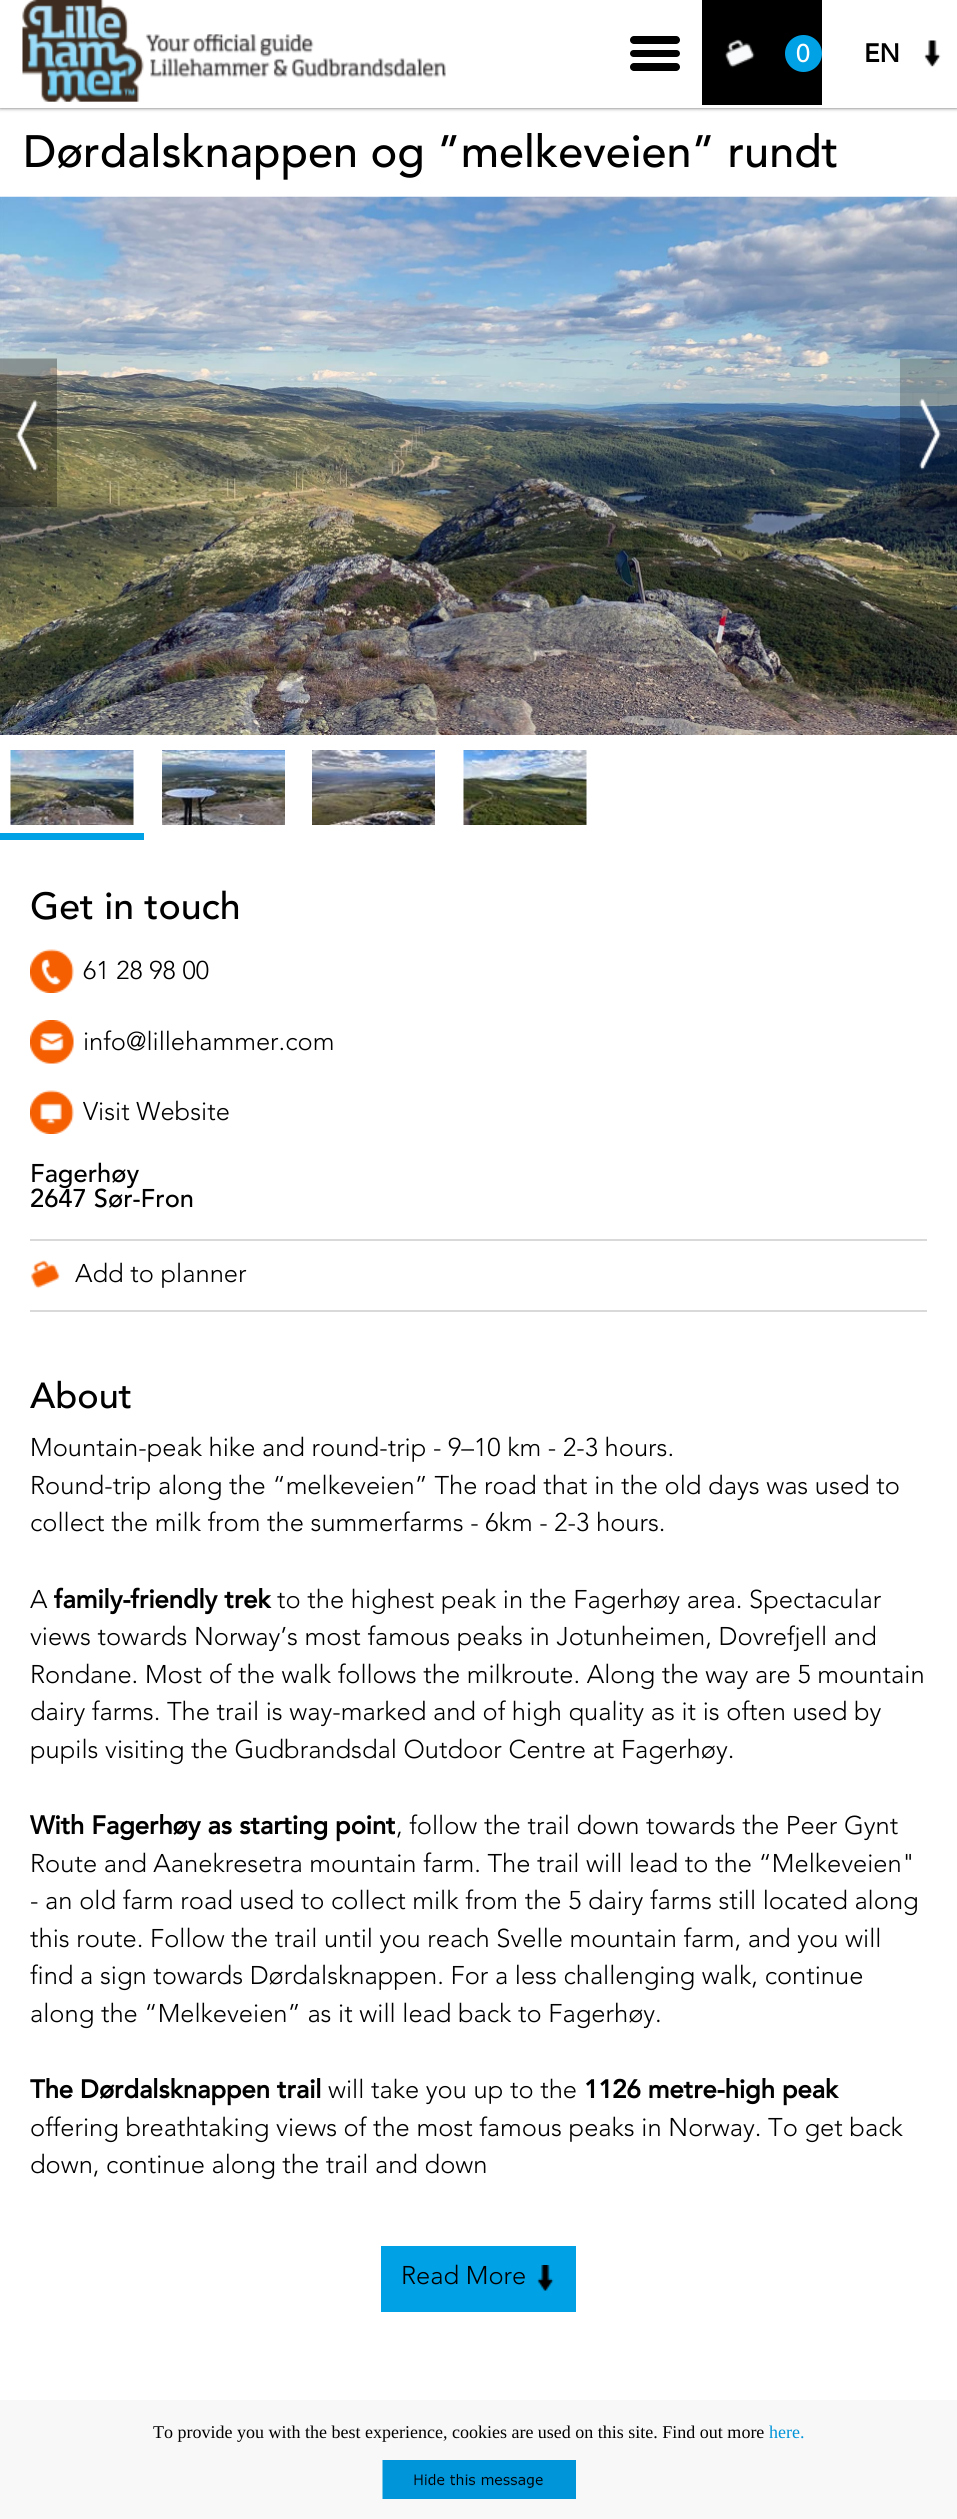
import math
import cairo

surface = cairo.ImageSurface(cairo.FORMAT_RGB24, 957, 2519)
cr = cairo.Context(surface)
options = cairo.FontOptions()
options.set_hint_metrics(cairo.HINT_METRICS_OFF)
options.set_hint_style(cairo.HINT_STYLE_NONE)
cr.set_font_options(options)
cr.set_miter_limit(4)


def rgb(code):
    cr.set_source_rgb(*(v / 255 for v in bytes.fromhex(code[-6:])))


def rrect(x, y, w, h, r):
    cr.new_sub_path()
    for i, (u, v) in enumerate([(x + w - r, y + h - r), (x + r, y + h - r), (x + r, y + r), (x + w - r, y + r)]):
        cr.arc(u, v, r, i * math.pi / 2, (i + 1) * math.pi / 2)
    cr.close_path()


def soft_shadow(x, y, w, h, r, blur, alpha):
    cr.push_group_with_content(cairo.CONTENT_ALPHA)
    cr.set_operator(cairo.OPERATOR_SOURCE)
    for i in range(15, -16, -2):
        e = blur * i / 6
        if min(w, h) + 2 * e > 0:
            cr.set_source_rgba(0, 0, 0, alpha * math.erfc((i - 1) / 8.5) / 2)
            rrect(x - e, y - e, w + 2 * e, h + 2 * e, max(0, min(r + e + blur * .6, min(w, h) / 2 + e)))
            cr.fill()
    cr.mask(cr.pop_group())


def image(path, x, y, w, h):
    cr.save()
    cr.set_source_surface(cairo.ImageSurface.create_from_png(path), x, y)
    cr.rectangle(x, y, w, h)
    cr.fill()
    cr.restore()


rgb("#ffffff")
cr.paint()
rgb("#606060")
soft_shadow(0, 0, 957, 108, 0, 2, 1)
rgb("#ffffff")
cr.rectangle(0, 0, 957, 108)
cr.fill()
image("img/1.png", 22, 0, 424, 102)
rgb("#000000")
rrect(630, 36, 50, 8, 4)
cr.fill()
rrect(630, 50, 50, 7, 3.5)
cr.fill()
rrect(630, 63, 50, 8, 4)
cr.fill()
cr.rectangle(702, 0, 120, 105)
cr.fill()
image("img/2.png", 725, 39, 30, 29)
rgb("#00a1e5")
cr.arc(803.5, 53.5, 18.5, 0, 2 * math.pi)
cr.fill()
image("img/3.png", 924, 40, 17, 27)
image("img/4.png", 0, 196, 957, 539)
image("img/5.png", 0, 358, 57, 149)
image("img/6.png", 900, 358, 57, 149)
cr.rectangle(0, 833, 144, 7)
cr.fill()
image("img/7.png", 10, 750, 124, 75)
image("img/8.png", 162, 750, 123, 75)
image("img/9.png", 312, 750, 123, 75)
image("img/10.png", 463, 750, 124, 75)
image("img/11.png", 30, 949, 44, 44)
image("img/12.png", 30, 1020, 44, 44)
image("img/13.png", 30, 1090, 44, 44)
rgb("#d9d9d9")
cr.rectangle(30, 1239, 897, 2)
cr.fill()
cr.rectangle(30, 1310, 897, 2)
cr.fill()
image("img/14.png", 30, 1260, 30, 29)
rgb("#00a1e5")
cr.rectangle(381, 2246, 195, 66)
cr.fill()
image("img/15.png", 537, 2265, 17, 26)
rgb("#f8f8f8")
cr.rectangle(0, 2400, 957, 119)
cr.fill()
image("img/16.png", 382, 2460, 194, 39)
cr.select_font_face("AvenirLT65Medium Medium")
cr.set_font_size(25.5)
rgb("#ffffff")
cr.move_to(796, 62)
cr.show_text("0")
cr.select_font_face("AvenirLT65Medium", cairo.FONT_SLANT_NORMAL, cairo.FONT_WEIGHT_BOLD)
rgb("#000000")
cr.move_to(864, 62)
cr.show_text("EN")
cr.select_font_face("AvenirLT65Medium Medium")
cr.set_font_size(45)
cr.move_to(23, 167)
cr.show_text("Dørdalsknappen og ”melkeveien” rundt")
cr.set_font_size(37.5)
cr.move_to(30, 919)
cr.show_text("Get in touch")
cr.select_font_face("Avenir Light")
cr.set_font_size(25.5)
for x, y, s in [
    (83, 979, "61 28 98 00"),
    (83, 1050, "info@lillehammer.com"),
    (83, 1120, "Visit Website"),
]:
    cr.move_to(x, y)
    cr.show_text(s)
cr.select_font_face("AvenirLT65Medium Medium")
cr.move_to(30, 1182)
cr.show_text("Fagerhøy")
cr.move_to(30, 1207)
cr.show_text("2647 Sør-Fron")
cr.select_font_face("Avenir Light")
cr.move_to(75, 1282)
cr.show_text("Add to planner")
cr.select_font_face("AvenirLT65Medium Medium")
cr.set_font_size(36)
cr.move_to(30, 1408)
cr.show_text("About")
cr.select_font_face("Avenir Light")
cr.set_font_size(25.5)
for x, y, s in [
    (30, 1456, "Mountain-peak hike and round-trip - 9–10 km - 2-3 hours."),
    (30, 1494, "Round-trip along the “melkeveien” The road that in the old days was used to"),
    (30, 1531, "collect the milk from the summerfarms - 6km - 2-3 hours."),
    (30, 1608, "A"),
]:
    cr.move_to(x, y)
    cr.show_text(s)
cr.select_font_face("AvenirLT65Medium", cairo.FONT_SLANT_NORMAL, cairo.FONT_WEIGHT_BOLD)
cr.move_to(54, 1608)
cr.show_text("family-friendly trek")
cr.select_font_face("Avenir Light")
for x, y, s in [
    (277, 1608, "to the highest peak in the Fagerhøy area. Spectacular"),
    (30, 1645, "views towards Norway’s most famous peaks in Jotunheimen, Dovrefjell and"),
    (30, 1683, "Rondane. Most of the walk follows the milkroute. Along the way are 5 mountain"),
    (30, 1720, "dairy farms. The trail is way-marked and of high quality as it is often used by"),
    (30, 1758, "pupils visiting the Gudbrandsdal Outdoor Centre at Fagerhøy."),
]:
    cr.move_to(x, y)
    cr.show_text(s)
cr.select_font_face("AvenirLT65Medium", cairo.FONT_SLANT_NORMAL, cairo.FONT_WEIGHT_BOLD)
cr.move_to(30, 1834)
cr.show_text("With Fagerhøy as starting point")
cr.select_font_face("Avenir Light")
for x, y, s in [
    (396, 1834, ", follow the trail down towards the Peer Gynt"),
    (30, 1872, "Route and Aanekresetra mountain farm. The trail will lead to the “Melkeveien\""),
    (30, 1909, "- an old farm road used to collect milk from the 5 dairy farms still located along"),
    (30, 1947, "this route. Follow the trail until you reach Svelle mountain farm, and you will"),
    (30, 1984, "find a sign towards Dørdalsknappen. For a less challenging walk, continue"),
    (30, 2022, "along the “Melkeveien” as it will lead back to Fagerhøy."),
]:
    cr.move_to(x, y)
    cr.show_text(s)
cr.select_font_face("AvenirLT65Medium", cairo.FONT_SLANT_NORMAL, cairo.FONT_WEIGHT_BOLD)
cr.move_to(30, 2098)
cr.show_text("The Dørdalsknappen trail")
cr.select_font_face("Avenir Light")
cr.move_to(328, 2098)
cr.show_text("will take you up to the")
cr.select_font_face("AvenirLT65Medium", cairo.FONT_SLANT_NORMAL, cairo.FONT_WEIGHT_BOLD)
cr.move_to(584, 2098)
cr.show_text("1126 metre-high peak")
cr.select_font_face("Avenir Light")
for x, y, s in [
    (30, 2136, "offering breathtaking views of the most famous peaks in Norway. To get back"),
    (30, 2173, "down, continue along the trail and down"),
    (401, 2284, "Read More"),
]:
    cr.move_to(x, y)
    cr.show_text(s)
cr.select_font_face("Liberation Serif")
cr.set_font_size(18)
cr.move_to(153, 2438)
cr.show_text("To provide you with the best experience, cookies are used on this site. Find out more")
rgb("#0094d8")
cr.move_to(769, 2438)
cr.show_text("here.")
surface.write_to_png("page.png")
